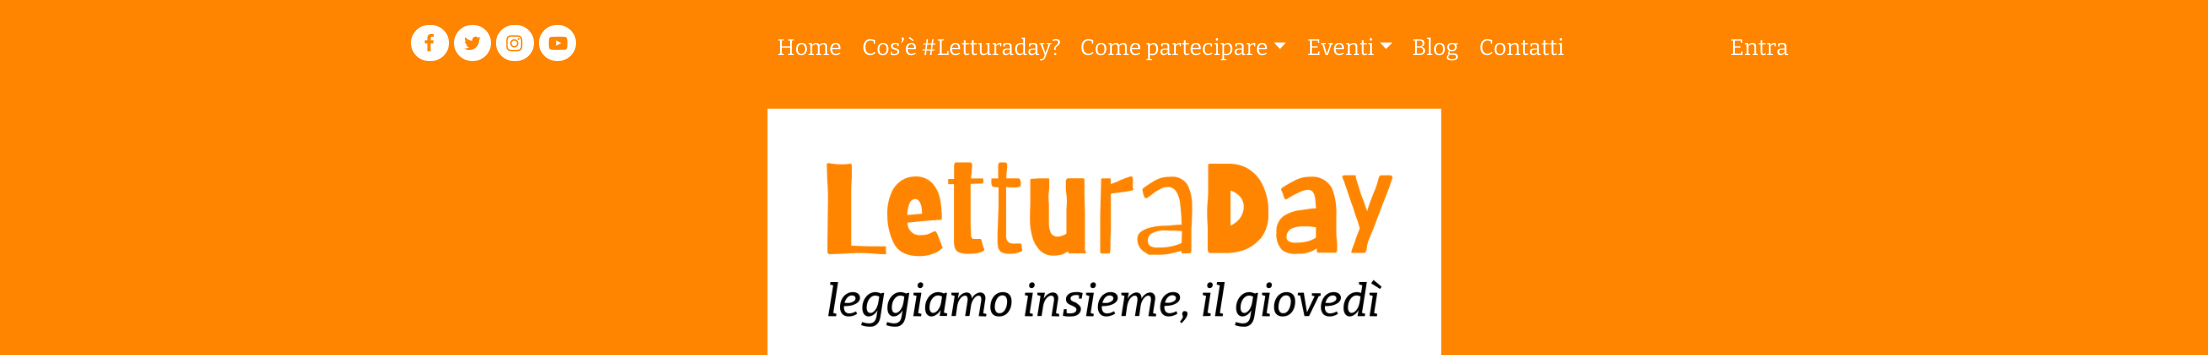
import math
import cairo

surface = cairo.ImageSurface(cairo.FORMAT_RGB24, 2208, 355)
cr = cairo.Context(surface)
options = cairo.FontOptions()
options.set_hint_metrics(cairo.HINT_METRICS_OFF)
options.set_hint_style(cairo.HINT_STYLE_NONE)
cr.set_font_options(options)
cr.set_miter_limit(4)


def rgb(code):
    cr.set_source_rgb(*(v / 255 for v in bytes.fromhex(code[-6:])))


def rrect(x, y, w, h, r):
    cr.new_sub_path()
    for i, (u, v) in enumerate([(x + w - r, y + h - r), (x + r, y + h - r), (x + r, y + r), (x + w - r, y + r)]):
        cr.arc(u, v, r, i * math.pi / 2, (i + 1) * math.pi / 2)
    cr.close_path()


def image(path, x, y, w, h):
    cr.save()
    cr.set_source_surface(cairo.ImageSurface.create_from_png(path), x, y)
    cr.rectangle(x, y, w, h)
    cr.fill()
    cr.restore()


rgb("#ff8500")
cr.paint()
rgb("#ffffff")
rrect(411, 25, 38, 36, 18)
cr.fill()
image("img/1.png", 424, 33, 10, 19)
rrect(454, 25, 37, 36, 18)
cr.fill()
image("img/2.png", 464, 36, 17, 14)
rrect(496, 25, 38, 36, 18)
cr.fill()
image("img/3.png", 506, 35, 17, 17)
rrect(539, 25, 37, 36, 18)
cr.fill()
image("img/4.png", 548, 36, 20, 14)
cr.new_path()
cr.move_to(1274, 42.5)
cr.line_to(1286, 42.5)
cr.line_to(1280, 49)
cr.close_path()
cr.fill()
cr.new_path()
cr.move_to(1380, 42.5)
cr.line_to(1392.5, 42.5)
cr.line_to(1386, 49)
cr.close_path()
cr.fill()
image("img/5.png", 767, 108, 675, 247)
cr.select_font_face("Bitter Thin")
cr.set_font_size(22.5)
for x, y, s in [
    (777, 55, "Home"),
    (862, 55, "Cos’è #Letturaday?"),
    (1080, 55, "Come partecipare"),
    (1307, 55, "Eventi"),
    (1412, 55, "Blog"),
    (1479, 55, "Contatti"),
    (1730, 55, "Entra"),
]:
    cr.move_to(x, y)
    cr.show_text(s)
surface.write_to_png("page.png")
